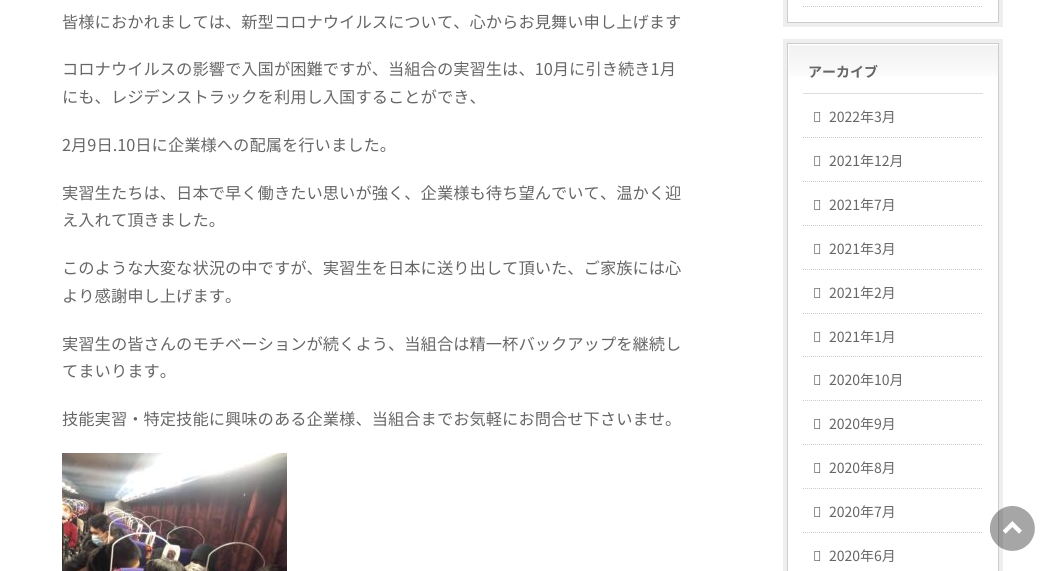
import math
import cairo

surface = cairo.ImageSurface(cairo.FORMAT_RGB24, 1055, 571)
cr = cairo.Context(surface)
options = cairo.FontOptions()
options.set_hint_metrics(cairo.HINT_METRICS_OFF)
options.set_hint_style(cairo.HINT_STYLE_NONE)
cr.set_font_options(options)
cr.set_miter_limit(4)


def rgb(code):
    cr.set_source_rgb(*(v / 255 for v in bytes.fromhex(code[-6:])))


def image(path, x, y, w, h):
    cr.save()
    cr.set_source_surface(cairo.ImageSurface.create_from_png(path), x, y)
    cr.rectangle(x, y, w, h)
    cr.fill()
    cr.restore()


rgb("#ffffff")
cr.paint()
image("img/1.png", 62, 453, 225, 118)
cr.rectangle(787.5, -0.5, 211, 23)
rgb("#cccccc")
cr.set_line_width(1)
cr.stroke()
cr.new_path()
cr.move_to(803, 6.5)
cr.line_to(983, 6.5)
cr.set_dash([1, 1])
cr.stroke()
cr.rectangle(785, -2, 216, 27)
rgb("#eeeeee")
cr.set_line_width(4)
cr.set_dash([])
cr.stroke()
image("img/2.png", 789, 45, 209, 31)
cr.rectangle(787.5, 43.5, 211, 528)
rgb("#cccccc")
cr.set_line_width(1)
cr.stroke()
cr.new_path()
cr.move_to(803, 137.5)
cr.line_to(983, 137.5)
cr.set_dash([1, 1])
cr.stroke()
cr.new_path()
cr.move_to(803, 181.5)
cr.line_to(983, 181.5)
cr.stroke()
cr.new_path()
cr.move_to(803, 225.5)
cr.line_to(983, 225.5)
cr.stroke()
cr.new_path()
cr.move_to(803, 269.5)
cr.line_to(983, 269.5)
cr.stroke()
cr.new_path()
cr.move_to(803, 313.5)
cr.line_to(983, 313.5)
cr.stroke()
cr.new_path()
cr.move_to(803, 356.5)
cr.line_to(983, 356.5)
cr.stroke()
cr.new_path()
cr.move_to(803, 400.5)
cr.line_to(983, 400.5)
cr.stroke()
cr.new_path()
cr.move_to(803, 444.5)
cr.line_to(983, 444.5)
cr.stroke()
cr.new_path()
cr.move_to(803, 488.5)
cr.line_to(983, 488.5)
cr.stroke()
cr.new_path()
cr.move_to(803, 532.5)
cr.line_to(983, 532.5)
cr.stroke()
cr.rectangle(785, 41, 216, 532)
rgb("#eeeeee")
cr.set_line_width(4)
cr.set_dash([])
cr.stroke()
rgb("#dddddd")
cr.rectangle(803, 93, 180, 1)
cr.fill()
image("img/3.png", 814, 112, 7, 10)
image("img/3.png", 814, 156, 7, 10)
image("img/3.png", 814, 200, 7, 10)
image("img/3.png", 814, 244, 7, 10)
image("img/3.png", 814, 288, 7, 10)
image("img/3.png", 814, 332, 7, 10)
image("img/3.png", 814, 375, 7, 10)
image("img/3.png", 814, 419, 7, 10)
image("img/3.png", 814, 463, 7, 10)
image("img/3.png", 814, 507, 7, 10)
image("img/3.png", 814, 551, 7, 10)
image("img/4.png", 990, 506, 45, 45)
cr.select_font_face("Noto Sans JP")
cr.set_font_size(16.3)
rgb("#666666")
for x, y, s in [
    (62, 28, "皆様におかれましては、新型コロナウイルスについて、心からお見舞い申し上げます"),
    (62, 75, "コロナウイルスの影響で入国が困難ですが、当組合の実習生は、10月に引き続き1月"),
    (62, 103, "にも、レジデンストラックを利用し入国することができ、"),
    (62, 151, "2月9日.10日に企業様への配属を行いました。"),
    (62, 199, "実習生たちは、日本で早く働きたい思いが強く、企業様も待ち望んでいて、温かく迎"),
    (62, 226, "え入れて頂きました。"),
    (62, 274, "このような大変な状況の中ですが、実習生を日本に送り出して頂いた、ご家族には心"),
    (62, 302, "より感謝申し上げます。"),
    (62, 350, "実習生の皆さんのモチベーションが続くよう、当組合は精一杯バックアップを継続し"),
    (62, 377, "てまいります。"),
    (62, 425, "技能実習・特定技能に興味のある企業様、当組合までお気軽にお問合せ下さいませ。"),
]:
    cr.move_to(x, y)
    cr.show_text(s)
cr.select_font_face("Noto Sans JP", cairo.FONT_SLANT_NORMAL, cairo.FONT_WEIGHT_BOLD)
cr.set_font_size(14)
cr.move_to(808, 77)
cr.show_text("アーカイブ")
cr.select_font_face("Noto Sans JP")
for x, y, s in [
    (829, 122, "2022年3月"),
    (829, 166, "2021年12月"),
    (829, 210, "2021年7月"),
    (829, 254, "2021年3月"),
    (829, 298, "2021年2月"),
    (829, 342, "2021年1月"),
    (829, 385, "2020年10月"),
    (829, 429, "2020年9月"),
    (829, 473, "2020年8月"),
    (829, 517, "2020年7月"),
    (829, 561, "2020年6月"),
]:
    cr.move_to(x, y)
    cr.show_text(s)
surface.write_to_png("page.png")
